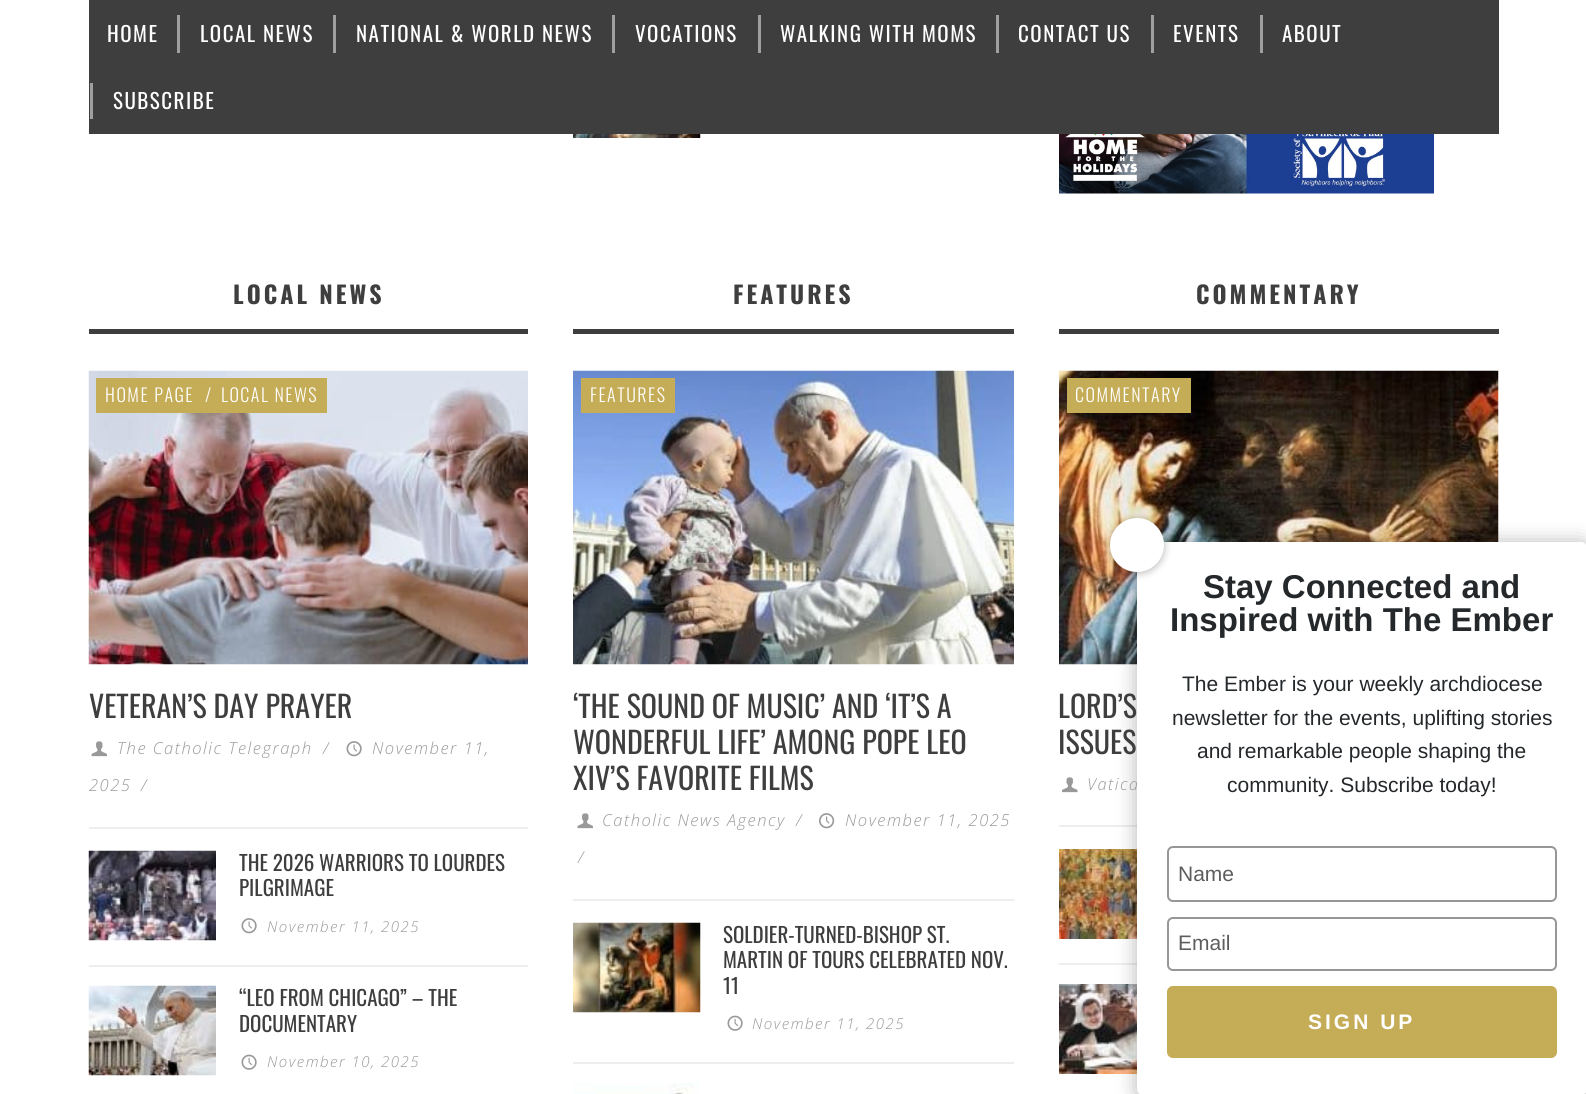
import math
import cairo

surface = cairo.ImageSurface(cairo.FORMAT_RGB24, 1586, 1094)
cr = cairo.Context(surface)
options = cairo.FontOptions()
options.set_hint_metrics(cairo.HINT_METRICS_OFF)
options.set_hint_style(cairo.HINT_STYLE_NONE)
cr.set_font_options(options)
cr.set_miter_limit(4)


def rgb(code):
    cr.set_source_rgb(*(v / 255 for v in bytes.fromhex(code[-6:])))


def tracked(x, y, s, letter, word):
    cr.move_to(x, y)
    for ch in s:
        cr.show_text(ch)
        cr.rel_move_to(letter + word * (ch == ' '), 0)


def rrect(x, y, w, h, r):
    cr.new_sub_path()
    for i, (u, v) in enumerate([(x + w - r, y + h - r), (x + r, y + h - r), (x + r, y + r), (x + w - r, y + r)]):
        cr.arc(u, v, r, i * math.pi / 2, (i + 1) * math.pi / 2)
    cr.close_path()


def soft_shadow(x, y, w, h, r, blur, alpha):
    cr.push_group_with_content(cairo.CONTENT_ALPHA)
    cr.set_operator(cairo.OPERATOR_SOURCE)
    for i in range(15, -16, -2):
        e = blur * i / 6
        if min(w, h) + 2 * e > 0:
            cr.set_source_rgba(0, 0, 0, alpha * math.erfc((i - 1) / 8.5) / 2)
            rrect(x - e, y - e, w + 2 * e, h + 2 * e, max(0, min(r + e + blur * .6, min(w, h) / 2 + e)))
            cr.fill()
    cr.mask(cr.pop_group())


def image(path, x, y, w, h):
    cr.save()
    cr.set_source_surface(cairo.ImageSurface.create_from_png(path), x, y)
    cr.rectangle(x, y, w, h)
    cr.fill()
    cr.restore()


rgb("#ffffff")
cr.paint()
for x, y, w, h, color in [
    (89, 0, 1410, 134, "#3e3e3e"),
    (177, 15, 3, 38, "#9f9f9f"),
    (333, 15, 3, 38, "#9f9f9f"),
    (612, 15, 3, 38, "#9f9f9f"),
    (758, 15, 3, 38, "#9f9f9f"),
    (996, 15, 3, 38, "#9f9f9f"),
    (1151, 15, 3, 38, "#9f9f9f"),
    (1260, 15, 3, 38, "#9f9f9f"),
    (90, 83, 3, 36, "#9f9f9f"),
]:
    rgb(color)
    cr.rectangle(x, y, w, h)
    cr.fill()
image("img/1.png", 573, 134, 128, 4)
image("img/2.png", 1059, 134, 375, 60)
rgb("#3e3e3e")
cr.rectangle(89, 329, 439, 5)
cr.fill()
rgb("#eeeeee")
cr.rectangle(89, 827, 439, 2)
cr.fill()
image("img/3.png", 88, 370, 440, 295)
rgb("#c5ac57")
cr.rectangle(96, 378, 231, 35)
cr.fill()
image("img/4.png", 91, 741, 16, 16)
image("img/5.png", 346, 741, 16, 16)
image("img/6.png", 88, 850, 128, 91)
image("img/5.png", 241, 918, 16, 16)
rgb("#eeeeee")
cr.rectangle(89, 965, 439, 2)
cr.fill()
image("img/7.png", 88, 985, 128, 91)
image("img/8.png", 241, 1054, 16, 16)
rgb("#3e3e3e")
cr.rectangle(573, 329, 441, 5)
cr.fill()
rgb("#eeeeee")
cr.rectangle(573, 899, 441, 2)
cr.fill()
image("img/9.png", 573, 370, 441, 295)
rgb("#c5ac57")
cr.rectangle(581, 378, 94, 35)
cr.fill()
image("img/4.png", 577, 813, 16, 16)
image("img/10.png", 819, 813, 16, 16)
image("img/11.png", 573, 922, 128, 91)
image("img/8.png", 727, 1015, 16, 16)
rgb("#eeeeee")
cr.rectangle(573, 1062, 441, 2)
cr.fill()
image("img/12.png", 573, 1083, 127, 11)
rgb("#3e3e3e")
cr.rectangle(1059, 329, 440, 5)
cr.fill()
rgb("#eeeeee")
cr.rectangle(1059, 825, 78, 2)
cr.fill()
image("img/13.png", 1059, 370, 440, 295)
rgb("#c5ac57")
cr.rectangle(1067, 378, 124, 35)
cr.fill()
image("img/14.png", 1062, 777, 16, 16)
image("img/15.png", 1059, 849, 78, 90)
rgb("#eeeeee")
cr.rectangle(1059, 963, 78, 2)
cr.fill()
image("img/16.png", 1059, 984, 78, 90)
rgb("#000000")
soft_shadow(1137, 543, 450, 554, 6, 10, 0.3)
cr.select_font_face("Oswald")
cr.set_font_size(21)
rgb("#ffffff")
for x, y, s in [
    (107, 42, "HOME"),
    (200, 42, "LOCAL NEWS"),
    (356, 42, "NATIONAL & WORLD NEWS"),
    (635, 42, "VOCATIONS"),
    (780, 42, "WALKING WITH MOMS"),
    (1018, 42, "CONTACT US"),
    (1173, 42, "EVENTS"),
    (1282, 42, "ABOUT"),
    (113, 109, "SUBSCRIBE"),
]:
    tracked(x, y, s, 1.5, 0)
cr.select_font_face("Oswald", cairo.FONT_SLANT_NORMAL, cairo.FONT_WEIGHT_BOLD)
cr.set_font_size(24)
rgb("#3e3e3e")
tracked(233, 304, "LOCAL NEWS", 3, 0)
cr.select_font_face("Oswald Light")
cr.set_font_size(18)
rgb("#ffffff")
tracked(105, 402, "HOME PAGE", 1.5, 0)
cr.move_to(205, 402)
cr.show_text("/")
tracked(221, 402, "LOCAL NEWS", 1.5, 0)
cr.select_font_face("Oswald")
cr.set_font_size(30)
rgb("#3e3e3e")
cr.move_to(89, 718)
cr.show_text("VETERAN’S DAY PRAYER")
cr.select_font_face("Open Sans Light", cairo.FONT_SLANT_ITALIC)
cr.set_font_size(16.5)
rgb("#999999")
for x, y, s in [
    (117, 754, "The Catholic Telegraph"),
    (323, 754, "/"),
    (372, 754, "November 11,"),
    (89, 791, "2025"),
    (141, 791, "/"),
]:
    tracked(x, y, s, 1.5, 0)
cr.select_font_face("Oswald")
cr.set_font_size(21)
rgb("#3e3e3e")
cr.move_to(239, 871)
cr.show_text("THE 2026 WARRIORS TO LOURDES")
cr.move_to(239, 896)
cr.show_text("PILGRIMAGE")
cr.select_font_face("Open Sans Light", cairo.FONT_SLANT_ITALIC)
cr.set_font_size(15)
rgb("#999999")
tracked(267, 932, "November 11, 2025", 1.5, 0)
cr.select_font_face("Oswald")
cr.set_font_size(21)
rgb("#3e3e3e")
cr.move_to(239, 1006)
cr.show_text("“LEO FROM CHICAGO” – THE")
cr.move_to(239, 1032)
cr.show_text("DOCUMENTARY")
cr.select_font_face("Open Sans Light", cairo.FONT_SLANT_ITALIC)
cr.set_font_size(15)
rgb("#999999")
tracked(267, 1067, "November 10, 2025", 1.5, 0)
cr.select_font_face("Oswald", cairo.FONT_SLANT_NORMAL, cairo.FONT_WEIGHT_BOLD)
cr.set_font_size(24)
rgb("#3e3e3e")
tracked(733, 304, "FEATURES", 3, 0)
cr.select_font_face("Oswald Light")
cr.set_font_size(18)
rgb("#ffffff")
tracked(590, 402, "FEATURES", 1.5, 0)
cr.select_font_face("Oswald")
cr.set_font_size(30)
rgb("#3e3e3e")
for x, y, s in [
    (573, 718, "‘THE SOUND OF MUSIC’ AND ‘IT’S A"),
    (573, 754, "WONDERFUL LIFE’ AMONG POPE LEO"),
    (573, 790, "XIV’S FAVORITE FILMS"),
]:
    cr.move_to(x, y)
    cr.show_text(s)
cr.select_font_face("Open Sans Light", cairo.FONT_SLANT_ITALIC)
cr.set_font_size(16.5)
rgb("#999999")
for x, y, s in [
    (602, 826, "Catholic News Agency"),
    (796, 826, "/"),
    (845, 826, "November 11, 2025"),
    (578, 863, "/"),
]:
    tracked(x, y, s, 1.5, 0)
cr.select_font_face("Oswald")
cr.set_font_size(21)
rgb("#3e3e3e")
for x, y, s in [
    (723, 943, "SOLDIER-TURNED-BISHOP ST."),
    (723, 968, "MARTIN OF TOURS CELEBRATED NOV."),
    (723, 994, "11"),
]:
    cr.move_to(x, y)
    cr.show_text(s)
cr.select_font_face("Open Sans Light", cairo.FONT_SLANT_ITALIC)
cr.set_font_size(15)
rgb("#999999")
tracked(752, 1029, "November 11, 2025", 1.5, 0)
cr.select_font_face("Oswald", cairo.FONT_SLANT_NORMAL, cairo.FONT_WEIGHT_BOLD)
cr.set_font_size(24)
rgb("#3e3e3e")
tracked(1196, 304, "COMMENTARY", 3, 0)
cr.select_font_face("Oswald Light")
cr.set_font_size(18)
rgb("#ffffff")
tracked(1075, 402, "COMMENTARY", 1.5, 0)
cr.select_font_face("Oswald")
cr.set_font_size(30)
rgb("#3e3e3e")
cr.move_to(1058, 718)
cr.show_text("LORD’S")
cr.move_to(1058, 754)
cr.show_text("ISSUES")
cr.select_font_face("Open Sans Light", cairo.FONT_SLANT_ITALIC)
cr.set_font_size(16.5)
rgb("#999999")
tracked(1087, 790, "Vatica", 1.5, 0)
rgb("#ffffff")
rrect(1137, 542, 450, 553, 6)
cr.fill()
rgb("#000000")
soft_shadow(1110, 519, 54, 54, 27, 4, 0.3)
rgb("#ffffff")
cr.arc(1137, 545, 27, 0, 2 * math.pi)
cr.fill()
cr.select_font_face("Liberation Sans", cairo.FONT_SLANT_NORMAL, cairo.FONT_WEIGHT_BOLD)
cr.set_font_size(33)
rgb("#24282a")
cr.move_to(1203, 598)
cr.show_text("Stay Connected and")
cr.move_to(1170, 631)
cr.show_text("Inspired with The Ember")
cr.select_font_face("Liberation Sans")
cr.set_font_size(21)
for x, y, s in [
    (1182, 691, "The Ember is your weekly archdiocese"),
    (1172, 725, "newsletter for the events, uplifting stories"),
    (1197, 758, "and remarkable people shaping the"),
    (1227, 792, "community. Subscribe today!"),
]:
    cr.move_to(x, y)
    cr.show_text(s)
rrect(1168, 847, 388, 54, 5)
rgb("#979797")
cr.stroke()
rgb("#5d5d5d")
cr.move_to(1178, 881)
cr.show_text("Name")
rrect(1168, 918, 388, 52, 5)
rgb("#979797")
cr.stroke()
rgb("#5d5d5d")
cr.move_to(1178, 950)
cr.show_text("Email")
rgb("#c5ac57")
rrect(1167, 986, 390, 72, 6)
cr.fill()
cr.select_font_face("Liberation Sans", cairo.FONT_SLANT_NORMAL, cairo.FONT_WEIGHT_BOLD)
rgb("#ffffff")
tracked(1308, 1029, "SIGN UP", 3, 0)
surface.write_to_png("page.png")
